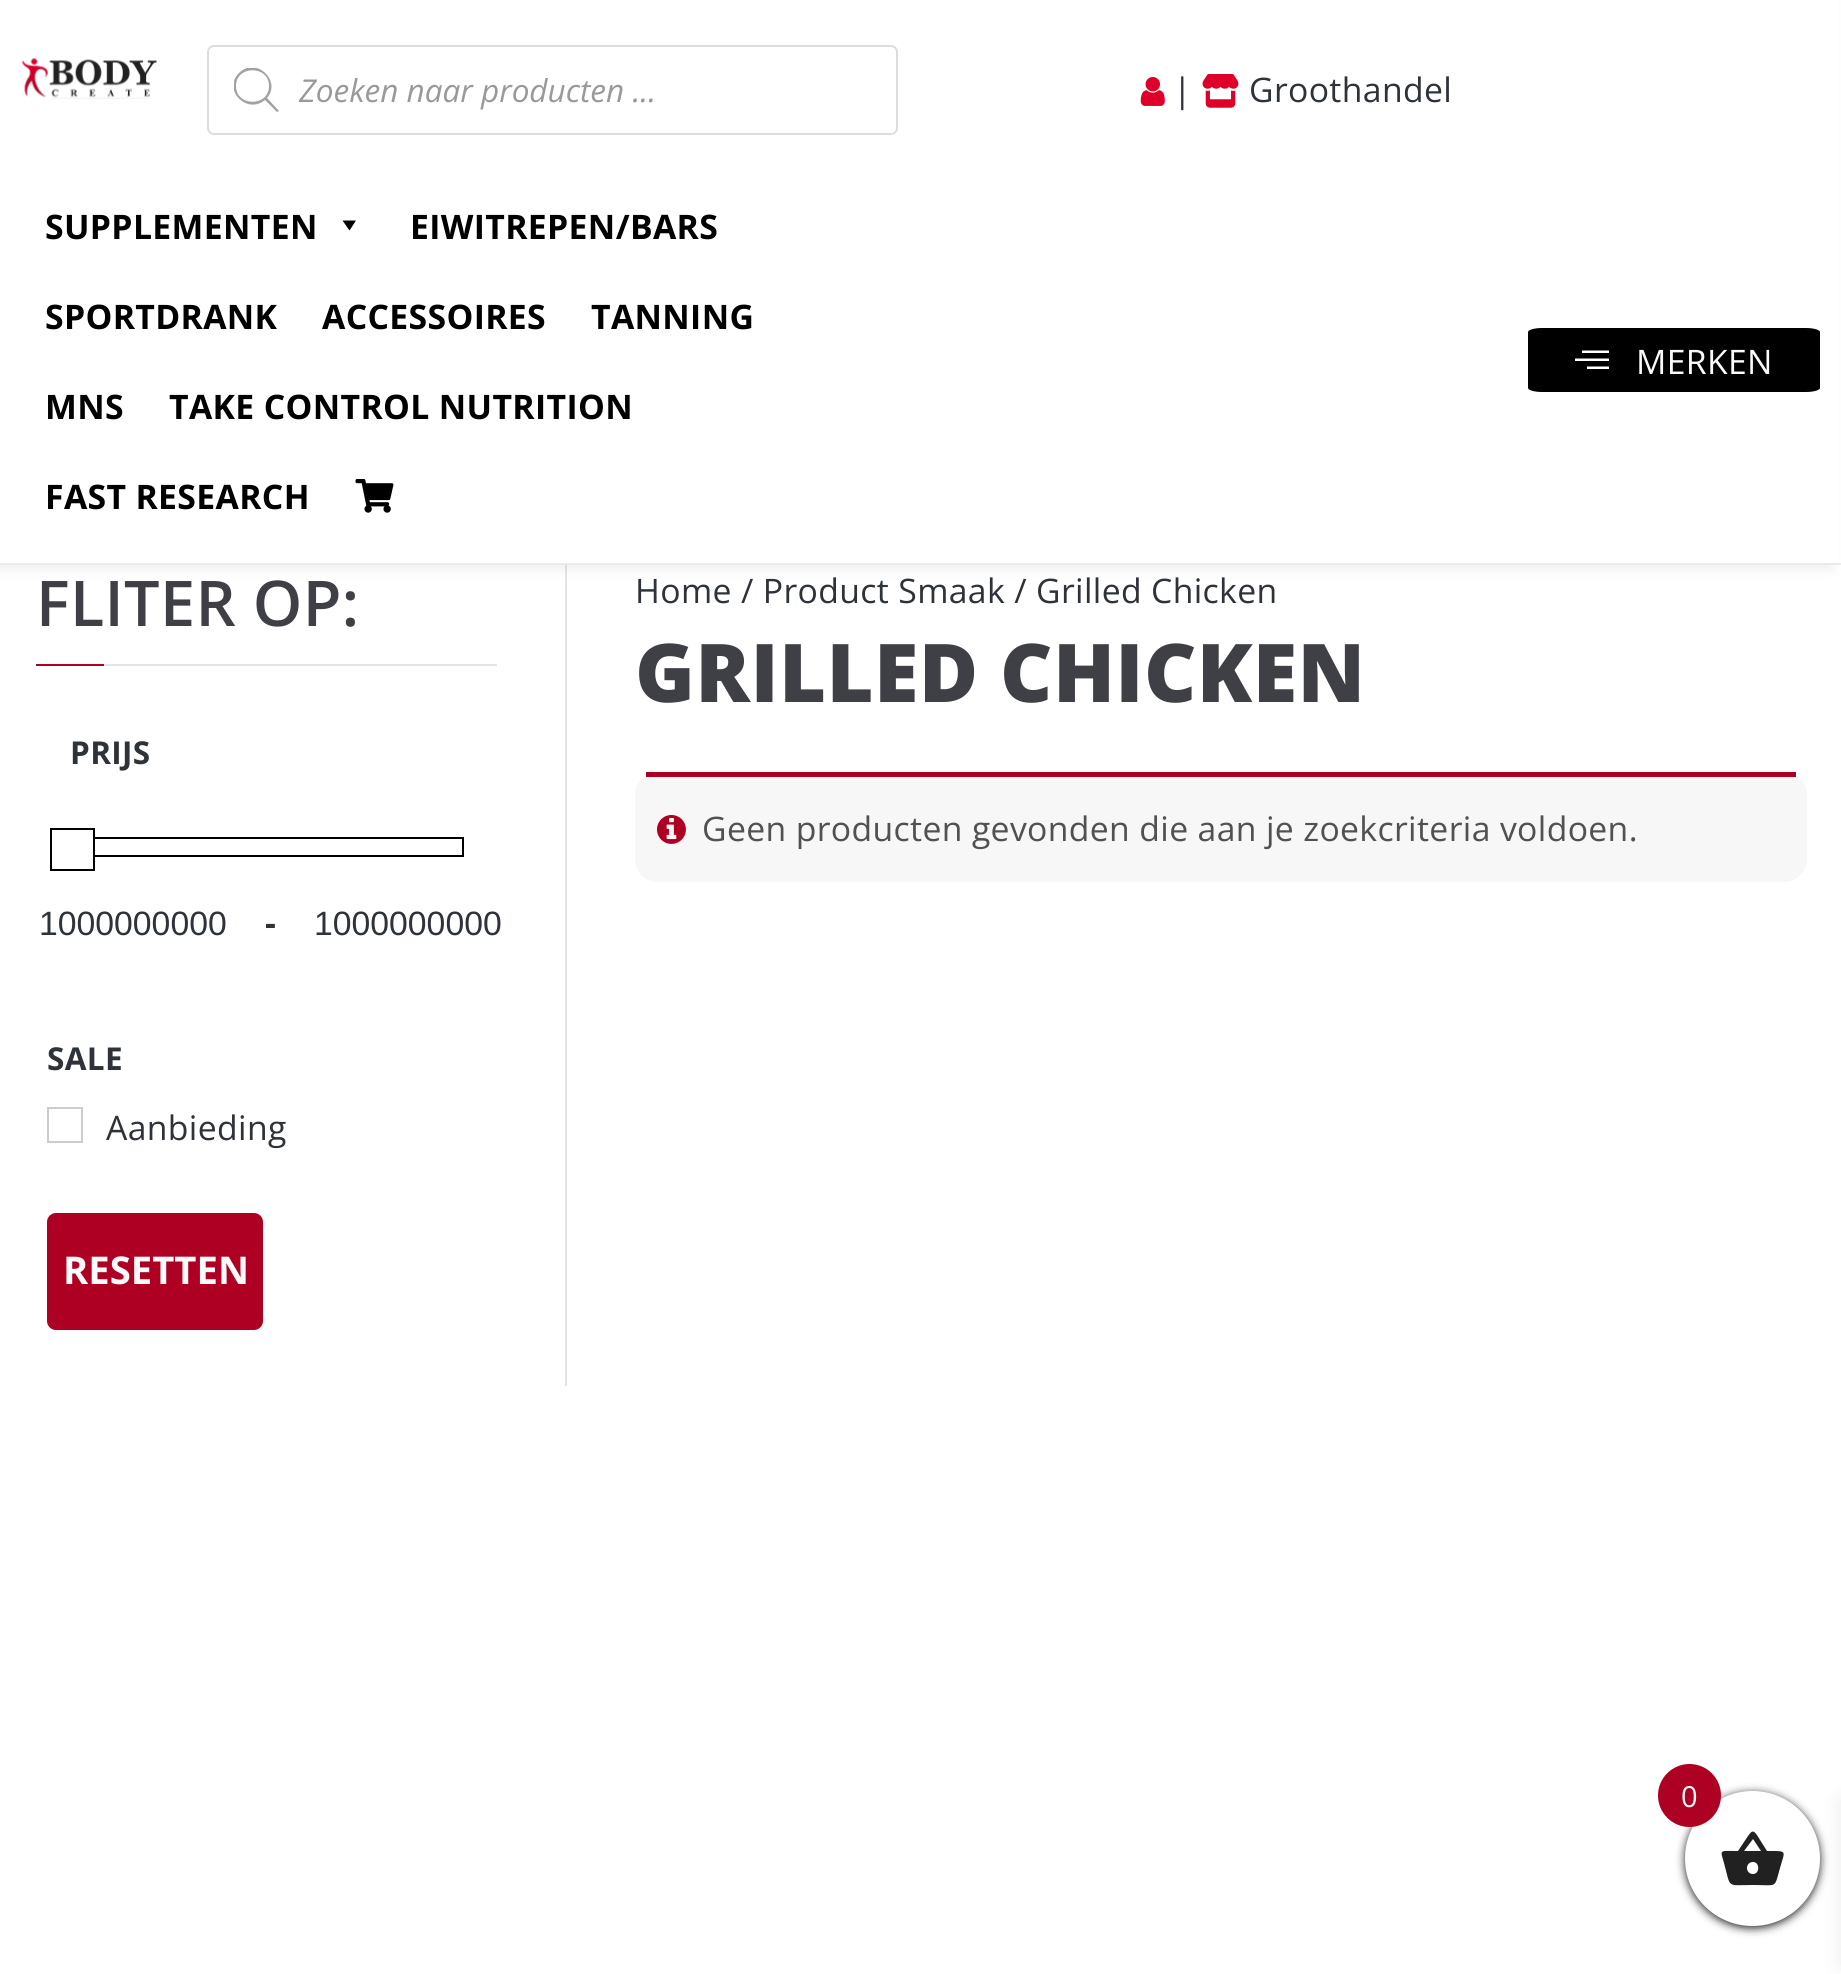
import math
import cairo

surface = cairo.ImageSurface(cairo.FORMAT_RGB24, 1841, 1974)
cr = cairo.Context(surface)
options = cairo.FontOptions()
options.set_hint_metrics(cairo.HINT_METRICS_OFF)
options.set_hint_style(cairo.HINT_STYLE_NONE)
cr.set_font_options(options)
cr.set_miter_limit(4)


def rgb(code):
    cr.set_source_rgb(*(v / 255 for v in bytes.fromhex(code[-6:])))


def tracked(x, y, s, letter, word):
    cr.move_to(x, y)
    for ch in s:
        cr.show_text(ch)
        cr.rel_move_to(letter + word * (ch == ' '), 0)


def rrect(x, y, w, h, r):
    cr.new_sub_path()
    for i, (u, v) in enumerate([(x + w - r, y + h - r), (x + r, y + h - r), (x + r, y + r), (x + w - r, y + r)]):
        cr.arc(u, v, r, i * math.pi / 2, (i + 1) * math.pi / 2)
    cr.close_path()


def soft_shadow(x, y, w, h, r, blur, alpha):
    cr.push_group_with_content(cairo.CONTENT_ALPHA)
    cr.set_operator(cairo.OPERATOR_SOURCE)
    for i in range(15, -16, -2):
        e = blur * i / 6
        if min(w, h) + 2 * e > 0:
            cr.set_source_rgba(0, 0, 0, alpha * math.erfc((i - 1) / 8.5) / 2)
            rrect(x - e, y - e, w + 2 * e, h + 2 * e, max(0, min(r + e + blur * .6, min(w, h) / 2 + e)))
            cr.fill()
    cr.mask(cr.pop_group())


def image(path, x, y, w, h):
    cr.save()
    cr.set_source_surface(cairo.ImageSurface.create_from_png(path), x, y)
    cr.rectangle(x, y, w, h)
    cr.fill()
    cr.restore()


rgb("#ffffff")
cr.paint()
rgb("#e4e4e7")
cr.rectangle(565, 565, 2, 821)
cr.fill()
rgb("#000000")
soft_shadow(-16, 0, 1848, 569, 0, 7, 0.07)
rgb("#ffffff")
cr.rectangle(0, 0, 1839, 563)
cr.fill()
rgb("#ebebeb")
cr.rectangle(0, 563, 1841, 2)
cr.fill()
image("img/1.png", 22, 58, 135, 41)
rrect(208, 46, 689, 88, 6)
rgb("#dddddd")
cr.stroke()
cr.save()
cr.rectangle(234, 68, 45, 45)
cr.clip()
rgb("#a2a2a2")
cr.new_path()
cr.move_to(279, 111)
cr.line_to(267, 98)
cr.curve_to(282, 81, 256, 56, 239, 73)
cr.curve_to(222, 90, 247, 115, 265, 100)
cr.line_to(277, 112)
cr.close_path()
cr.move_to(236, 86)
cr.curve_to(236, 65, 269, 65, 269, 86)
cr.curve_to(269, 107, 236, 107, 236, 86)
cr.close_path()
cr.fill()
cr.restore()
image("img/2.png", 1140, 77, 25, 29)
image("img/3.png", 1202, 74, 37, 34)
rgb("#000000")
cr.new_path()
cr.move_to(356, 220.5)
cr.line_to(349.5, 230.5)
cr.line_to(342.5, 220.5)
cr.close_path()
cr.fill()
image("img/4.png", 355, 479, 39, 34)
cr.new_path()
cr.move_to(1542, 328)
cr.line_to(1806, 328)
cr.curve_to(1814, 328, 1820, 330, 1820, 332)
cr.line_to(1820, 388)
cr.curve_to(1820, 390, 1814, 392, 1806, 392)
cr.line_to(1542, 392)
cr.curve_to(1534, 392, 1528, 390, 1528, 388)
cr.line_to(1528, 332)
cr.curve_to(1528, 330, 1534, 328, 1542, 328)
cr.close_path()
cr.fill()
rgb("#ffffff")
cr.new_path()
cr.move_to(1575, 361)
cr.line_to(1609, 361)
cr.line_to(1609, 358.5)
cr.line_to(1575, 358.5)
cr.close_path()
cr.move_to(1587, 369)
cr.line_to(1609, 369)
cr.line_to(1609, 366.5)
cr.line_to(1587, 366.5)
cr.close_path()
cr.move_to(1582, 350.5)
cr.line_to(1582, 353)
cr.line_to(1609, 353)
cr.line_to(1609, 350.5)
cr.close_path()
cr.fill()
rgb("#e4e4e7")
cr.rectangle(104, 664, 393, 2)
cr.fill()
rgb("#ad0022")
cr.rectangle(36, 664, 68, 2)
cr.fill()
cr.rectangle(71, 838, 392, 18)
rgb("#000000")
cr.stroke()
rgb("#ffffff")
cr.rectangle(70, 837, 23, 20)
cr.fill()
cr.rectangle(51, 829, 43, 41)
rgb("#000000")
cr.stroke()
cr.rectangle(48, 1108, 34, 34)
rgb("#cccccc")
cr.stroke()
rgb("#ad0022")
rrect(47, 1213, 216, 117, 9)
cr.fill()
rgb("#f7f7f7")
rrect(635, 772, 1172, 110, 23)
cr.fill()
rgb("#ad0022")
cr.rectangle(646, 772, 1150, 5)
cr.fill()
image("img/5.png", 657, 815, 29, 29)
rgb("#212121")
soft_shadow(1685, 1793, 135, 135, 67.5, 4.5, 1)
rgb("#000000")
soft_shadow(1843, 1802, 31, 162, 0, 11, 0.1)
rgb("#ffffff")
cr.arc(1752.5, 1858.5, 67.5, 0, 2 * math.pi)
cr.fill()
rgb("#ad0022")
cr.arc(1689.5, 1795.5, 31.5, 0, 2 * math.pi)
cr.fill()
rgb("#212121")
cr.new_path()
cr.move_to(1753, 1874)
cr.curve_to(1760, 1874, 1760, 1862, 1753, 1862)
cr.curve_to(1745, 1862, 1745, 1874, 1753, 1874)
cr.close_path()
cr.move_to(1744, 1851)
cr.line_to(1761, 1851)
cr.line_to(1753, 1839)
cr.close_path()
cr.move_to(1767, 1851)
cr.curve_to(1788, 1851, 1785, 1850, 1780, 1868)
cr.curve_to(1774, 1889, 1778, 1885, 1753, 1885)
cr.curve_to(1726, 1885, 1731, 1889, 1724, 1863)
cr.curve_to(1720, 1849, 1719, 1851, 1738, 1851)
cr.curve_to(1756, 1825, 1750, 1825, 1767, 1851)
cr.close_path()
cr.fill()
cr.select_font_face("Open Sans", cairo.FONT_SLANT_ITALIC)
cr.set_font_size(31.5)
rgb("#999999")
cr.move_to(299, 102)
cr.show_text("Zoeken naar producten ...")
cr.select_font_face("Open Sans")
cr.set_font_size(33.75)
rgb("#2e333a")
tracked(1173, 102, "|", 0.35, 0)
tracked(1249, 102, "Groothandel", 0.35, 0)
cr.select_font_face("Open Sans", cairo.FONT_SLANT_NORMAL, cairo.FONT_WEIGHT_BOLD)
rgb("#000000")
for x, y, s in [
    (45, 239, "SUPPLEMENTEN"),
    (410, 239, "EIWITREPEN/BARS"),
    (45, 329, "SPORTDRANK"),
    (322, 329, "ACCESSOIRES"),
    (591, 329, "TANNING"),
    (45, 419, "MNS"),
    (169, 419, "TAKE CONTROL NUTRITION"),
    (45, 509, "FAST RESEARCH"),
]:
    tracked(x, y, s, 0.35, 0)
cr.select_font_face("Open Sans")
rgb("#fafafa")
tracked(1636, 374, "MERKEN", 0.35, 0)
cr.select_font_face("Open Sans SemiBold")
cr.set_font_size(63)
rgb("#3f3f46")
tracked(36, 626, "FLITER OP:", 0.35, 0)
cr.select_font_face("Open Sans", cairo.FONT_SLANT_NORMAL, cairo.FONT_WEIGHT_BOLD)
cr.set_font_size(31.5)
rgb("#2e333a")
tracked(70, 764, "PRIJS", 0.35, 0)
cr.select_font_face("Liberation Sans")
cr.set_font_size(33.75)
cr.move_to(39, 935)
cr.show_text("1000000000")
cr.select_font_face("Open Sans", cairo.FONT_SLANT_NORMAL, cairo.FONT_WEIGHT_BOLD)
tracked(265, 935, "-", 0.35, 0)
cr.select_font_face("Liberation Sans")
cr.move_to(314, 935)
cr.show_text("1000000000")
cr.select_font_face("Open Sans", cairo.FONT_SLANT_NORMAL, cairo.FONT_WEIGHT_BOLD)
cr.set_font_size(31.5)
tracked(47, 1070, "SALE", 0.35, 0)
cr.select_font_face("Open Sans")
cr.set_font_size(33.75)
tracked(106, 1140, "Aanbieding", 0.35, 0)
cr.select_font_face("Open Sans", cairo.FONT_SLANT_NORMAL, cairo.FONT_WEIGHT_BOLD)
cr.set_font_size(38.25)
rgb("#fafafa")
cr.move_to(63, 1284)
cr.show_text("RESETTEN")
cr.select_font_face("Open Sans")
cr.set_font_size(33.75)
rgb("#2e333a")
tracked(635, 603, "Home / Product Smaak / Grilled Chicken", 0.35, 0)
cr.select_font_face("Open Sans ExtraBold")
cr.set_font_size(81)
rgb("#3f3f46")
tracked(635, 702, "GRILLED CHICKEN", 0.35, 0)
cr.select_font_face("Open Sans")
cr.set_font_size(33.75)
rgb("#515151")
tracked(702, 841, "Geen producten gevonden die aan je zoekcriteria voldoen.", 0.35, 0)
cr.set_font_size(29)
rgb("#fafafa")
tracked(1681, 1807, "0", 0.35, 0)
surface.write_to_png("page.png")
